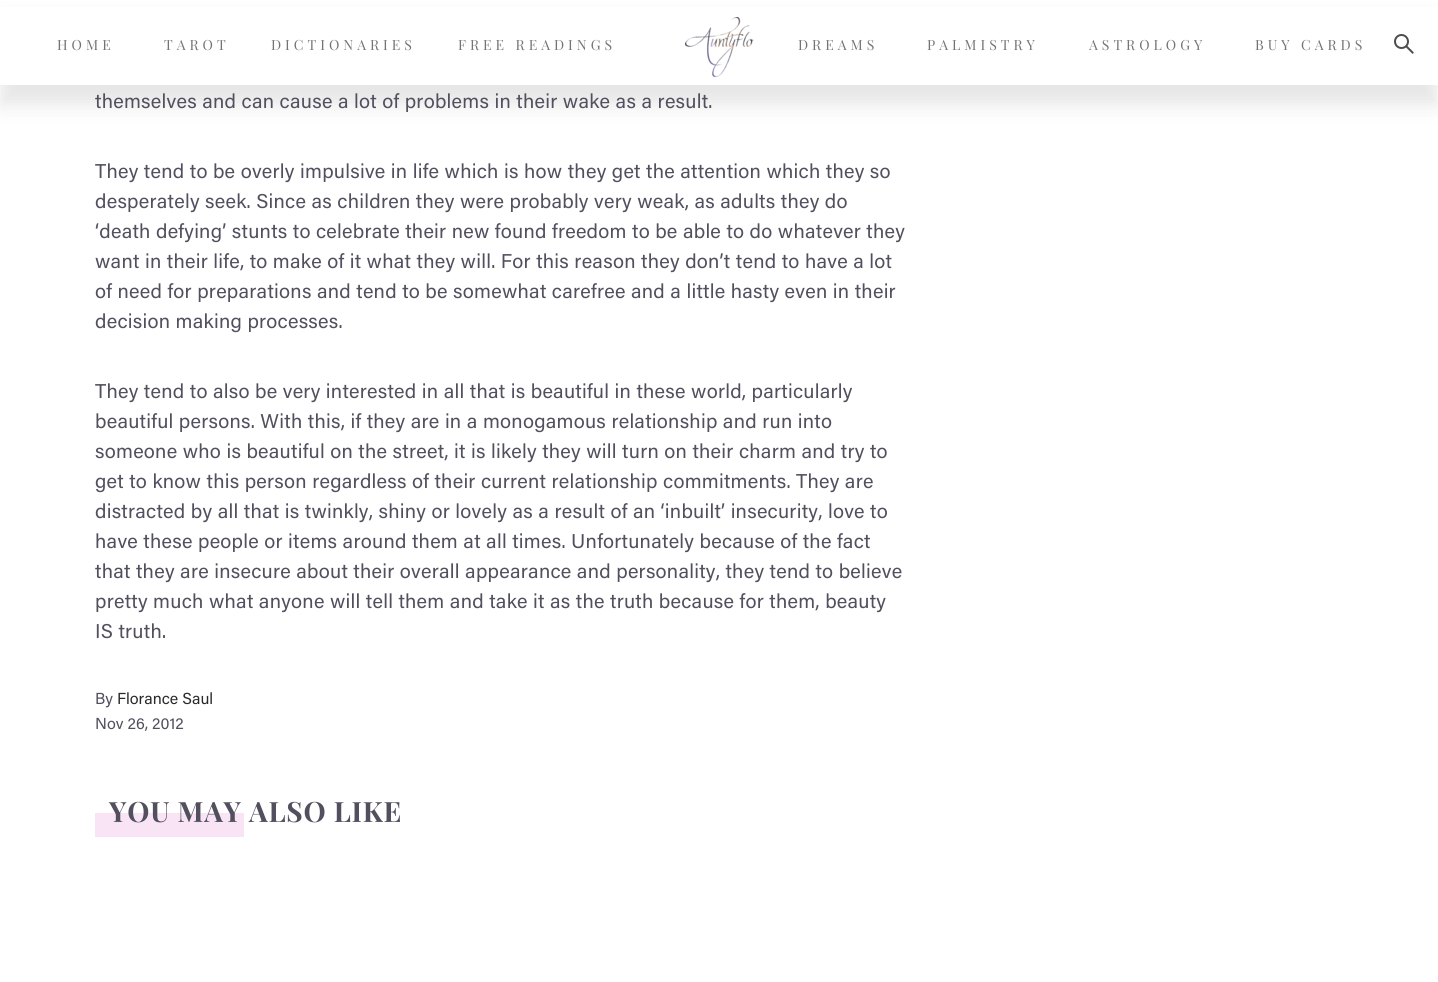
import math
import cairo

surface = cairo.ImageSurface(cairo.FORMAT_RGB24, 1438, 982)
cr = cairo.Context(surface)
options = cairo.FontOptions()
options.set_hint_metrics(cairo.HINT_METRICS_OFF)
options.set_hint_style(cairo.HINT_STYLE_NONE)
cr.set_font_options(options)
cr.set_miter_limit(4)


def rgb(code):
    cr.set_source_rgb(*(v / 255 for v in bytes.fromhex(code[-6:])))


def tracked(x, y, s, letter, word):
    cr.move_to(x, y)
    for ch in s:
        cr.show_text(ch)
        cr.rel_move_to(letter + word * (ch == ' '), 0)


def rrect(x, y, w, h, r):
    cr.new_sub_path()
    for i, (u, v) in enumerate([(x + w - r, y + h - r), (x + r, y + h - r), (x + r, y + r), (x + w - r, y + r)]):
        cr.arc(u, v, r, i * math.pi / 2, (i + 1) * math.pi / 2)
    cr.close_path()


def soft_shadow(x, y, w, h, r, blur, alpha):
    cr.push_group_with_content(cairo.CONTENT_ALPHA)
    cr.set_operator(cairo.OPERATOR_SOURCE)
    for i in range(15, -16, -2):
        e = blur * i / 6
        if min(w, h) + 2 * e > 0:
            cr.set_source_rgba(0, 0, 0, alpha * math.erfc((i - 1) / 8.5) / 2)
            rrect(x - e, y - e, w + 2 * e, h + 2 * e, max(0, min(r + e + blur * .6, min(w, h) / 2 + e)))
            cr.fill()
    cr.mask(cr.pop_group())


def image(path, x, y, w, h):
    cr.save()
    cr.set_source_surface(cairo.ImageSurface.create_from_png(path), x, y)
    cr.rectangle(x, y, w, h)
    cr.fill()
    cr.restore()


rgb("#ffffff")
cr.paint()
rgb("#000000")
soft_shadow(0, 20, 1438, 85, 0, 10, 0.1)
rgb("#ffffff")
cr.rectangle(0, 7, 1438, 78)
cr.fill()
image("img/1.png", 685, 17, 69, 60)
image("img/2.png", 1394, 34, 20, 20)
rgb("#f9e4f6")
cr.rectangle(95, 813, 149, 24)
cr.fill()
cr.select_font_face("Playfair Display")
cr.set_font_size(14)
rgb("#737373")
for x, y, s in [
    (57, 50, "HOME"),
    (164, 50, "TAROT"),
    (271, 50, "DICTIONARIES"),
    (458, 50, "FREE READINGS"),
    (798, 50, "DREAMS"),
    (927, 50, "PALMISTRY"),
    (1089, 50, "ASTROLOGY"),
    (1255, 50, "BUY CARDS"),
]:
    tracked(x, y, s, 4, 0)
cr.select_font_face("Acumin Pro")
cr.set_font_size(20)
rgb("#524f5e")
for x, y, s in [
    (95, 108, "themselves and can cause a lot of problems in their wake as a result."),
    (95, 178, "They tend to be overly impulsive in life which is how they get the attention which they so"),
    (95, 208, "desperately seek. Since as children they were probably very weak, as adults they do"),
    (95, 238, "‘death defying’ stunts to celebrate their new found freedom to be able to do whatever they"),
    (95, 268, "want in their life, to make of it what they will. For this reason they don’t tend to have a lot"),
    (95, 298, "of need for preparations and tend to be somewhat carefree and a little hasty even in their"),
    (95, 328, "decision making processes."),
    (95, 398, "They tend to also be very interested in all that is beautiful in these world, particularly"),
    (95, 428, "beautiful persons. With this, if they are in a monogamous relationship and run into"),
    (95, 458, "someone who is beautiful on the street, it is likely they will turn on their charm and try to"),
    (95, 488, "get to know this person regardless of their current relationship commitments. They are"),
    (95, 518, "distracted by all that is twinkly, shiny or lovely as a result of an ‘inbuilt’ insecurity, love to"),
    (95, 548, "have these people or items around them at all times. Unfortunately because of the fact"),
    (95, 578, "that they are insecure about their overall appearance and personality, they tend to believe"),
    (95, 608, "pretty much what anyone will tell them and take it as the truth because for them, beauty"),
    (95, 638, "IS truth."),
]:
    tracked(x, y, s, 0.25, 0)
cr.set_font_size(16)
cr.move_to(95, 704)
cr.show_text("By")
rgb("#2a2a2a")
cr.move_to(117, 704)
cr.show_text("Florance Saul")
rgb("#524f5e")
cr.move_to(95, 729)
cr.show_text("Nov 26, 2012")
cr.select_font_face("Playfair Display", cairo.FONT_SLANT_NORMAL, cairo.FONT_WEIGHT_BOLD)
cr.set_font_size(28)
tracked(109, 822, "YOU MAY ALSO LIKE", 0.75, 0)
surface.write_to_png("page.png")
